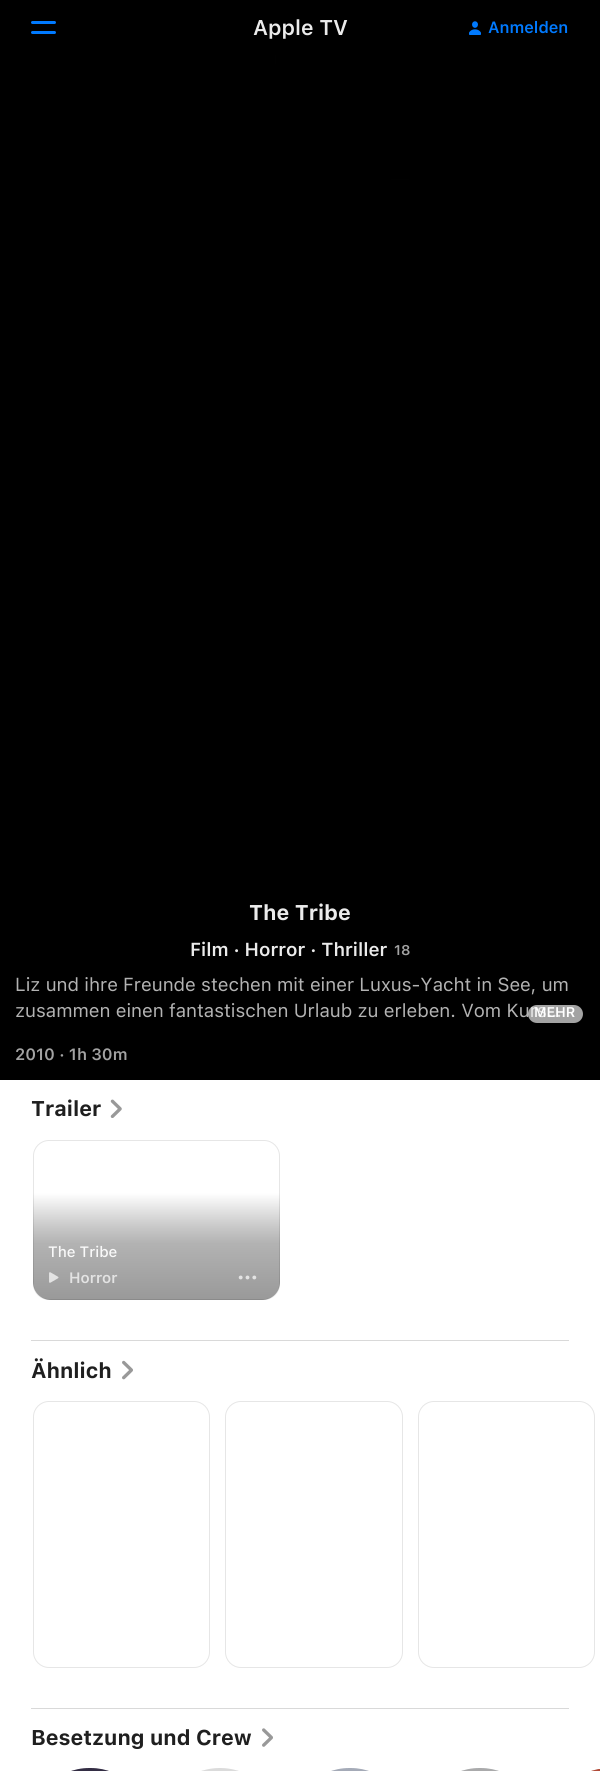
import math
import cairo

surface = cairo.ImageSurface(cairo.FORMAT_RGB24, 600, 1771)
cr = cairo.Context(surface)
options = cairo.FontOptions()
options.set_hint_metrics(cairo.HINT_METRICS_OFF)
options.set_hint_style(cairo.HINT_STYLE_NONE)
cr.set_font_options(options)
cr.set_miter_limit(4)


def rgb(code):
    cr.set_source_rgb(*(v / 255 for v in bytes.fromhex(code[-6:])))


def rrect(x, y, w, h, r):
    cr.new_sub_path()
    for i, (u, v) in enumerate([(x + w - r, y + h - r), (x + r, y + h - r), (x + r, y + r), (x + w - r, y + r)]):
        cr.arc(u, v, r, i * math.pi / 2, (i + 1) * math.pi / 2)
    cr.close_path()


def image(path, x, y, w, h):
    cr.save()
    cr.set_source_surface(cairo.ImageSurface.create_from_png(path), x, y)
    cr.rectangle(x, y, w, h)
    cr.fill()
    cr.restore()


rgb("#ffffff")
cr.paint()
rgb("#000000")
cr.rectangle(0, 0, 600, 55)
cr.fill()
rgb("#007aff")
rrect(31, 21, 25, 3, 1.5)
cr.fill()
rrect(31, 31, 25, 3, 1.5)
cr.fill()
image("img/1.png", 469, 21, 12, 14)
rgb("#000000")
cr.rectangle(276, 55, 249, 124)
cr.fill()
gradient = cairo.RadialGradient(400, 55, 0, 400, 55, 125)
gradient.add_color_stop_rgba(0, 0, 0, 0, 0)
gradient.add_color_stop_rgba(0.19, 0, 0, 0, 0.04)
gradient.add_color_stop_rgba(0.36, 0, 0, 0, 0.15)
gradient.add_color_stop_rgba(0.51, 0, 0, 0, 0.3)
gradient.add_color_stop_rgba(0.53, 0, 0, 0, 0.33)
gradient.add_color_stop_rgba(0.65, 0, 0, 0, 0.49)
gradient.add_color_stop_rgba(0.77, 0, 0, 0, 0.67)
gradient.add_color_stop_rgba(0.89, 0, 0, 0, 0.85)
gradient.add_color_stop_rgba(1, 0, 0, 0, 1)
cr.set_source(gradient)
cr.rectangle(0, 55, 600, 1025)
cr.fill()
image("img/2.png", 110, 1099, 12, 19)
rrect(33.5, 1140.5, 246, 159, 15.5)
rgb("#e6e6e6")
cr.set_line_width(1)
cr.stroke()
gradient = cairo.LinearGradient(156, 1193, 156, 1300)
gradient.add_color_stop_rgba(0, 0, 0, 0, 0)
gradient.add_color_stop_rgba(0.19, 0, 0, 0, 0.13)
gradient.add_color_stop_rgba(0.31, 0, 0, 0, 0.21)
gradient.add_color_stop_rgba(0.47, 0, 0, 0, 0.3)
gradient.add_color_stop_rgba(1, 0, 0, 0, 0.4)
cr.set_source(gradient)
cr.new_path()
cr.move_to(33, 1193)
cr.line_to(280, 1193)
cr.line_to(280, 1282)
cr.curve_to(280, 1292, 272, 1300, 262, 1300)
cr.line_to(51, 1300)
cr.curve_to(41, 1300, 33, 1292, 33, 1282)
cr.close_path()
cr.fill()
image("img/3.png", 49, 1272, 10, 11)
image("img/4.png", 238, 1275, 19, 5)
rgb("#d9d9d9")
cr.rectangle(31, 1340, 538, 1)
cr.fill()
image("img/5.png", 122, 1360, 11, 20)
rrect(33.5, 1401.5, 176, 266, 15.5)
rgb("#e6e6e6")
cr.stroke()
rrect(225.5, 1401.5, 177, 266, 15.5)
cr.stroke()
rrect(418.5, 1401.5, 176, 266, 15.5)
cr.stroke()
rgb("#d9d9d9")
cr.rectangle(31, 1708, 538, 1)
cr.fill()
image("img/6.png", 262, 1728, 11, 19)
cr.save()
rrect(31, 1768, 118, 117, 58.5)
cr.clip()
rrect(31, 1768, 118, 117, 58.5)
cr.clip()
rgb("#39324b")
cr.rectangle(71, 1768, 38, 3)
cr.fill()
cr.restore()
cr.set_source_rgba(0, 0, 0, 0.1)
cr.new_path()
cr.move_to(90, 1768)
cr.curve_to(123, 1768, 149, 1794, 149, 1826)
cr.curve_to(149, 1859, 123, 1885, 90, 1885)
cr.curve_to(57, 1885, 31, 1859, 31, 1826)
cr.curve_to(31, 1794, 57, 1768, 90, 1768)
cr.close_path()
cr.fill()
cr.save()
rrect(161, 1768, 118, 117, 58.5)
cr.clip()
rrect(161, 1768, 118, 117, 58.5)
cr.clip()
rgb("#f3f3f3")
cr.rectangle(201, 1768, 38, 3)
cr.fill()
cr.restore()
cr.new_path()
cr.move_to(220, 1768)
cr.curve_to(253, 1768, 279, 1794, 279, 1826)
cr.curve_to(279, 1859, 253, 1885, 220, 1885)
cr.curve_to(187, 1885, 161, 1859, 161, 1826)
cr.curve_to(161, 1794, 187, 1768, 220, 1768)
cr.close_path()
cr.fill()
cr.save()
rrect(291, 1768, 118, 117, 58.5)
cr.clip()
rrect(291, 1768, 118, 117, 58.5)
cr.clip()
gradient = cairo.LinearGradient(350, 1768, 350, 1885)
gradient.add_color_stop_rgba(0, 0.647, 0.671, 0.722, 1)
gradient.add_color_stop_rgba(1, 0.518, 0.537, 0.576, 1)
cr.set_source(gradient)
cr.rectangle(331, 1768, 38, 3)
cr.fill()
cr.restore()
cr.save()
rrect(421, 1768, 118, 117, 58.5)
cr.clip()
rrect(421, 1768, 118, 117, 58.5)
cr.clip()
rgb("#bcbdbe")
cr.rectangle(461, 1768, 38, 3)
cr.fill()
cr.restore()
cr.new_path()
cr.move_to(480, 1768)
cr.curve_to(513, 1768, 539, 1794, 539, 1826)
cr.curve_to(539, 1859, 513, 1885, 480, 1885)
cr.curve_to(447, 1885, 421, 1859, 421, 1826)
cr.curve_to(421, 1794, 447, 1768, 480, 1768)
cr.close_path()
cr.fill()
cr.save()
rrect(551, 1768, 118, 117, 58.5)
cr.clip()
rrect(551, 1768, 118, 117, 58.5)
cr.clip()
rgb("#c3523d")
cr.rectangle(591, 1769, 9, 2)
cr.fill()
cr.restore()
cr.new_path()
cr.move_to(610, 1768)
cr.curve_to(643, 1768, 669, 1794, 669, 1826)
cr.curve_to(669, 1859, 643, 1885, 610, 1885)
cr.curve_to(577, 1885, 551, 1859, 551, 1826)
cr.curve_to(551, 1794, 577, 1768, 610, 1768)
cr.close_path()
cr.fill()
cr.select_font_face("SF SemiBold")
cr.set_font_size(21.25)
rgb("#ebebeb")
cr.move_to(253, 35)
cr.show_text("Apple TV")
cr.set_font_size(16.25)
rgb("#007aff")
cr.move_to(488, 33)
cr.show_text("Anmelden")
cr.select_font_face("SF", cairo.FONT_SLANT_NORMAL, cairo.FONT_WEIGHT_BOLD)
cr.set_font_size(21.25)
rgb("#ebebeb")
cr.move_to(249, 920)
cr.show_text("The Tribe")
cr.select_font_face("SF SemiBold")
cr.set_font_size(18.75)
cr.move_to(190, 956)
cr.show_text("Film · Horror · Thriller")
cr.set_font_size(14)
rgb("#a3a3a3")
cr.move_to(394, 955)
cr.show_text("18")
cr.select_font_face("SF")
cr.set_font_size(18.75)
rgb("#b3b3b3")
cr.move_to(15, 991)
cr.show_text("Liz und ihre Freunde stechen mit einer Luxus-Yacht in See, um")
cr.move_to(15, 1017)
cr.show_text("zusammen einen fantastischen Urlaub zu erleben. Vom Kurs…")
cr.set_source_rgba(1, 1, 1, 0.64)
rrect(528, 1005, 55, 18, 9)
cr.fill()
cr.select_font_face("SF SemiBold")
cr.set_font_size(14)
rgb("#ffffff")
cr.move_to(534, 1017)
cr.show_text("MEHR")
cr.set_font_size(16.25)
rgb("#a3a3a3")
cr.move_to(15, 1060)
cr.show_text("2010 · 1h 30m")
cr.select_font_face("SF", cairo.FONT_SLANT_NORMAL, cairo.FONT_WEIGHT_BOLD)
cr.set_font_size(21.25)
rgb("#1f1f1f")
cr.move_to(31, 1116)
cr.show_text("Trailer")
cr.select_font_face("SF Medium")
cr.set_font_size(15)
rgb("#f9f9f9")
cr.move_to(48, 1257)
cr.show_text("The Tribe")
cr.select_font_face("SF SemiBold")
rgb("#e3e3e3")
cr.move_to(69, 1283)
cr.show_text("Horror")
cr.select_font_face("SF", cairo.FONT_SLANT_NORMAL, cairo.FONT_WEIGHT_BOLD)
cr.set_font_size(21.25)
rgb("#1f1f1f")
cr.move_to(31, 1378)
cr.show_text("Ähnlich")
cr.move_to(31, 1745)
cr.show_text("Besetzung und Crew")
surface.write_to_png("page.png")
